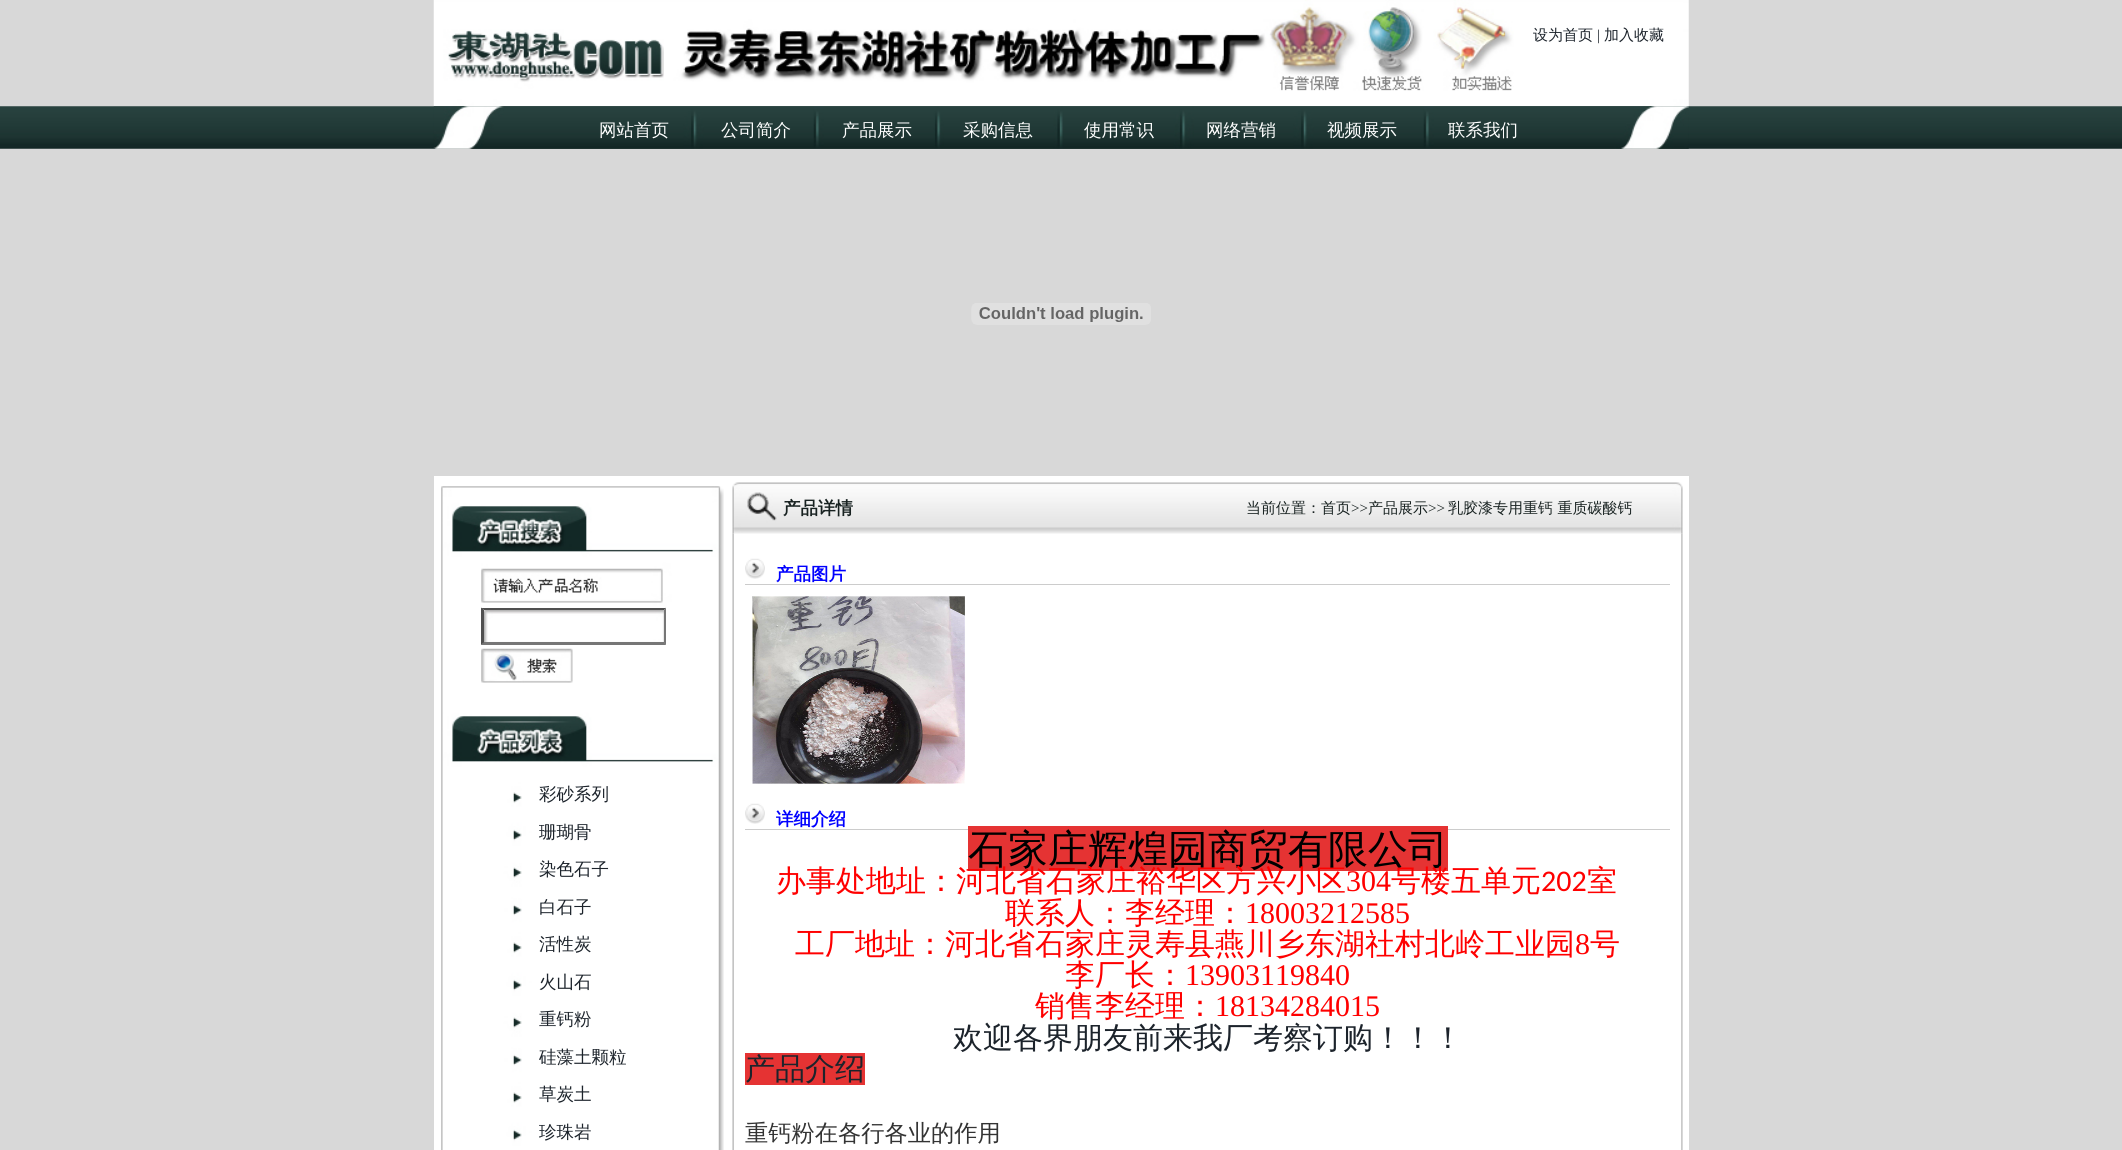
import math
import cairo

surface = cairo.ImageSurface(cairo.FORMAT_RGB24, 2122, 1150)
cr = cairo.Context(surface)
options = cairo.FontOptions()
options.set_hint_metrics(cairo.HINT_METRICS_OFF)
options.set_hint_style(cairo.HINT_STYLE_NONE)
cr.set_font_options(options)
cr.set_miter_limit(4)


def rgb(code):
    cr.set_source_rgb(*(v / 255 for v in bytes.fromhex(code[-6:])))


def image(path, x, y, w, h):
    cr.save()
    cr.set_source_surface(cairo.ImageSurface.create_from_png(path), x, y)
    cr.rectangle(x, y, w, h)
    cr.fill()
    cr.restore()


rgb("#d8d8d8")
cr.paint()
image("img/1.png", 433, 0, 1256, 107)
rgb("#f1f7f5")
cr.rectangle(625, 74, 1, 1)
cr.fill()
image("img/2.png", 0, 106, 2122, 43)
image("img/3.png", 433, 106, 1256, 43)
image("img/4.png", 971, 303, 180, 22)
rgb("#ffffff")
cr.rectangle(434, 476, 1255, 674)
cr.fill()
image("img/5.png", 441, 486, 283, 664)
image("img/6.png", 483, 610, 182, 34)
rgb("#4f4f4f")
cr.new_path()
cr.move_to(481, 608)
cr.line_to(666, 608)
cr.line_to(664, 610)
cr.line_to(484, 610)
cr.close_path()
cr.fill()
rgb("#767676")
cr.new_path()
cr.move_to(666, 607.5)
cr.line_to(666, 645)
cr.line_to(664, 642.5)
cr.line_to(664, 610)
cr.close_path()
cr.fill()
cr.new_path()
cr.move_to(666, 645)
cr.line_to(481, 645)
cr.line_to(484, 642)
cr.line_to(664, 642)
cr.close_path()
cr.fill()
rgb("#4f4f4f")
cr.new_path()
cr.move_to(481, 645)
cr.line_to(481, 607.5)
cr.line_to(484, 610)
cr.line_to(484, 642.5)
cr.close_path()
cr.fill()
image("img/7.png", 481, 648, 92, 35)
image("img/8.png", 732, 482, 951, 52)
image("img/9.png", 732, 533, 951, 617)
image("img/10.png", 745, 558, 20, 21)
rgb("#cccccc")
cr.rectangle(745, 584, 925, 1)
cr.fill()
image("img/11.png", 752, 596, 213, 188)
image("img/10.png", 745, 803, 20, 21)
for x, y, w, h, color in [
    (745, 829, 925, 1, "#cccccc"),
    (968, 826, 480, 45, "#e53333"),
    (745, 1053, 120, 32, "#e53333"),
]:
    rgb(color)
    cr.rectangle(x, y, w, h)
    cr.fill()
cr.select_font_face("WenQuanYi Zen Hei Medium")
cr.set_font_size(15)
rgb("#1c232b")
cr.move_to(1533, 40)
cr.show_text("设为首页")
cr.select_font_face("Liberation Serif")
cr.move_to(1597, 40)
cr.show_text("|")
cr.select_font_face("WenQuanYi Zen Hei Medium")
cr.move_to(1604, 40)
cr.show_text("加入收藏")
cr.set_font_size(17.5)
rgb("#ffffff")
for x, y, s in [
    (599, 136, "网站首页"),
    (721, 136, "公司简介"),
    (842, 136, "产品展示"),
    (963, 136, "采购信息"),
    (1084, 136, "使用常识"),
    (1206, 136, "网络营销"),
    (1327, 136, "视频展示"),
    (1448, 136, "联系我们"),
]:
    cr.move_to(x, y)
    cr.show_text(s)
rgb("#1c232b")
for x, y, s in [
    (539, 800, "彩砂系列"),
    (539, 838, "珊瑚骨"),
    (539, 875, "染色石子"),
    (539, 913, "白石子"),
    (539, 950, "活性炭"),
    (539, 988, "火山石"),
    (539, 1025, "重钙粉"),
    (539, 1063, "硅藻土颗粒"),
    (539, 1100, "草炭土"),
    (539, 1138, "珍珠岩"),
]:
    cr.move_to(x, y)
    cr.show_text(s)
cr.select_font_face("WenQuanYi Zen Hei", cairo.FONT_SLANT_NORMAL, cairo.FONT_WEIGHT_BOLD)
rgb("#182221")
cr.move_to(783, 514)
cr.show_text("产品详情")
cr.select_font_face("WenQuanYi Zen Hei Medium")
cr.set_font_size(15)
cr.move_to(1246, 513)
cr.show_text("当前位置：首页")
cr.select_font_face("Liberation Serif")
cr.move_to(1351, 513)
cr.show_text(">>")
cr.select_font_face("WenQuanYi Zen Hei Medium")
cr.move_to(1368, 513)
cr.show_text("产品展示")
cr.select_font_face("Liberation Serif")
cr.move_to(1428, 513)
cr.show_text(">>")
cr.select_font_face("WenQuanYi Zen Hei Medium")
cr.move_to(1448, 513)
cr.show_text("乳胶漆专用重钙 重质碳酸钙")
cr.select_font_face("WenQuanYi Zen Hei", cairo.FONT_SLANT_NORMAL, cairo.FONT_WEIGHT_BOLD)
cr.set_font_size(17.5)
rgb("#0000ff")
cr.move_to(776, 580)
cr.show_text("产品图片")
cr.move_to(776, 825)
cr.show_text("详细介绍")
cr.select_font_face("WenQuanYi Zen Hei Medium")
cr.set_font_size(40)
rgb("#000000")
cr.move_to(968, 863)
cr.show_text("石家庄辉煌园商贸有限公司")
cr.set_font_size(30)
rgb("#ff0000")
cr.move_to(776, 891)
cr.show_text("办事处地址：河北省石家庄裕华区方兴小区")
cr.select_font_face("Liberation Serif")
cr.move_to(1346, 891)
cr.show_text("304")
cr.select_font_face("WenQuanYi Zen Hei Medium")
cr.move_to(1391, 891)
cr.show_text("号楼五单元")
cr.select_font_face("Carlito")
cr.move_to(1541, 891)
cr.show_text("202")
cr.select_font_face("WenQuanYi Zen Hei Medium")
cr.move_to(1587, 891)
cr.show_text("室")
cr.move_to(1005, 923)
cr.show_text("联系人：李经理：")
cr.select_font_face("Liberation Serif")
cr.move_to(1245, 923)
cr.show_text("18003212585")
cr.select_font_face("WenQuanYi Zen Hei Medium")
cr.move_to(795, 954)
cr.show_text("工厂地址：河北省石家庄灵寿县燕川乡东湖社村北岭工业园")
cr.select_font_face("Liberation Serif")
cr.move_to(1575, 954)
cr.show_text("8")
cr.select_font_face("WenQuanYi Zen Hei Medium")
cr.move_to(1590, 954)
cr.show_text("号")
cr.move_to(1065, 985)
cr.show_text("李厂长：")
cr.select_font_face("Liberation Serif")
cr.move_to(1185, 985)
cr.show_text("13903119840")
cr.select_font_face("WenQuanYi Zen Hei Medium")
cr.move_to(1035, 1016)
cr.show_text("销售李经理：")
cr.select_font_face("Liberation Serif")
cr.move_to(1215, 1016)
cr.show_text("18134284015")
cr.select_font_face("WenQuanYi Zen Hei Medium")
rgb("#1c232b")
cr.move_to(953, 1048)
cr.show_text("欢迎各界朋友前来我厂考察订购！！！")
cr.move_to(745, 1079)
cr.show_text("产品介绍")
cr.set_font_size(23.25)
rgb("#333333")
cr.move_to(745, 1141)
cr.show_text("重钙粉在各行各业的作用")
surface.write_to_png("page.png")
